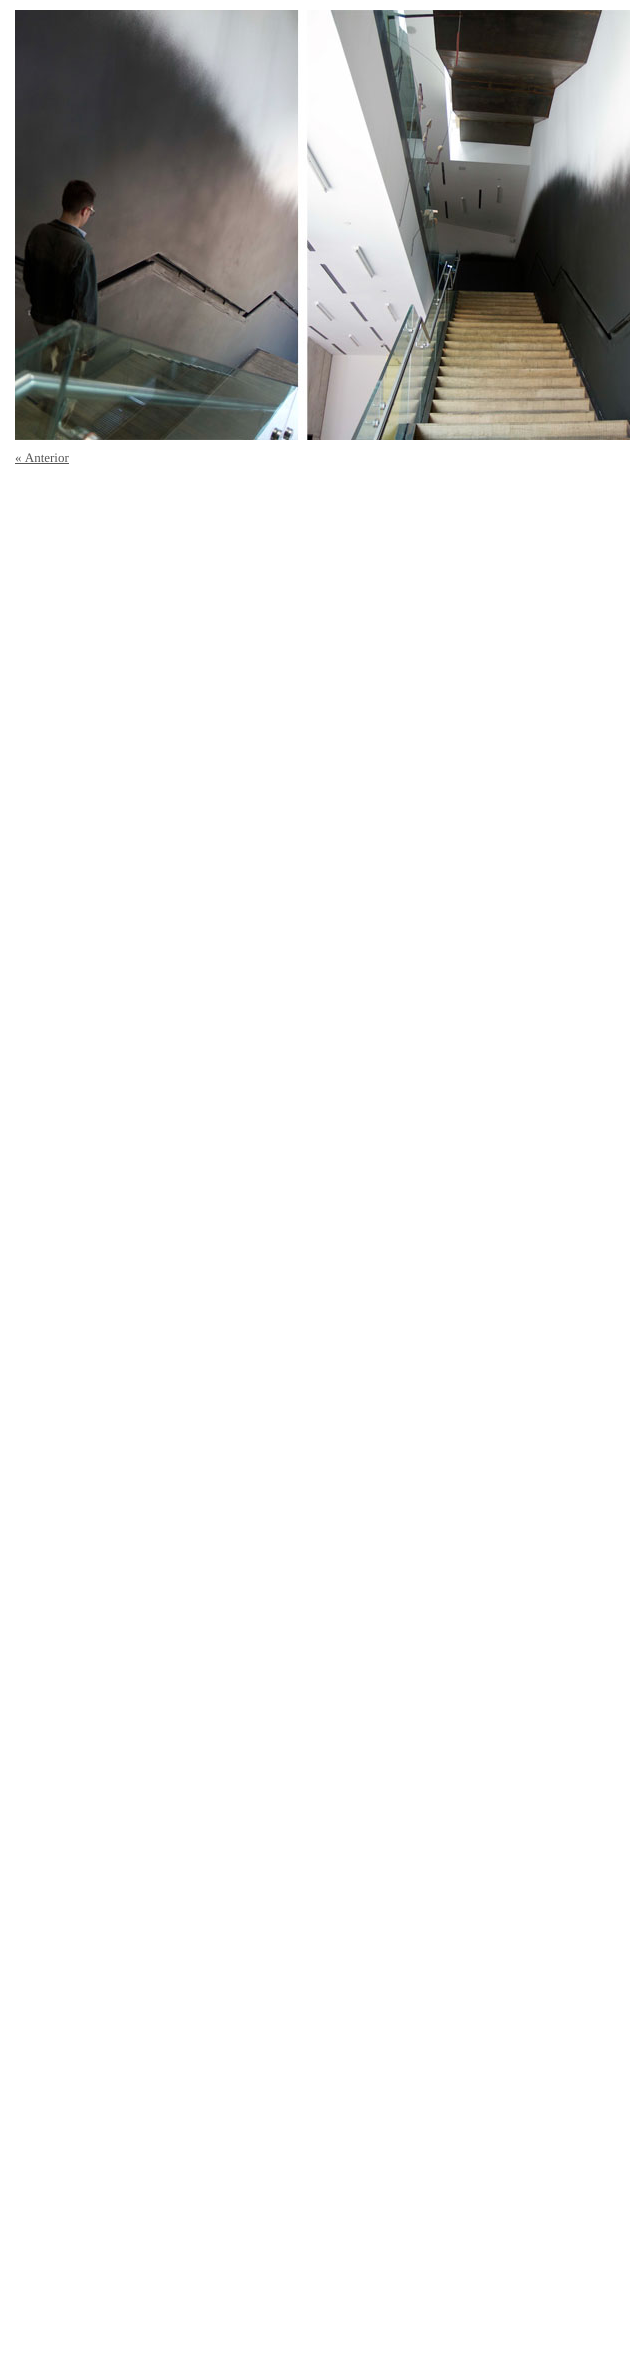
import math
import cairo

surface = cairo.ImageSurface(cairo.FORMAT_RGB24, 630, 2360)
cr = cairo.Context(surface)
options = cairo.FontOptions()
options.set_hint_metrics(cairo.HINT_METRICS_OFF)
options.set_hint_style(cairo.HINT_STYLE_NONE)
cr.set_font_options(options)
cr.set_miter_limit(4)


def rgb(code):
    cr.set_source_rgb(*(v / 255 for v in bytes.fromhex(code[-6:])))


def image(path, x, y, w, h):
    cr.save()
    cr.set_source_surface(cairo.ImageSurface.create_from_png(path), x, y)
    cr.rectangle(x, y, w, h)
    cr.fill()
    cr.restore()


rgb("#ffffff")
cr.paint()
image("img/1.png", 15, 10, 615, 430)
rgb("#555555")
cr.rectangle(15, 463, 54, 1)
cr.fill()
cr.select_font_face("Liberation Serif")
cr.set_font_size(13)
cr.move_to(15, 462)
cr.show_text("« Anterior")
surface.write_to_png("page.png")
